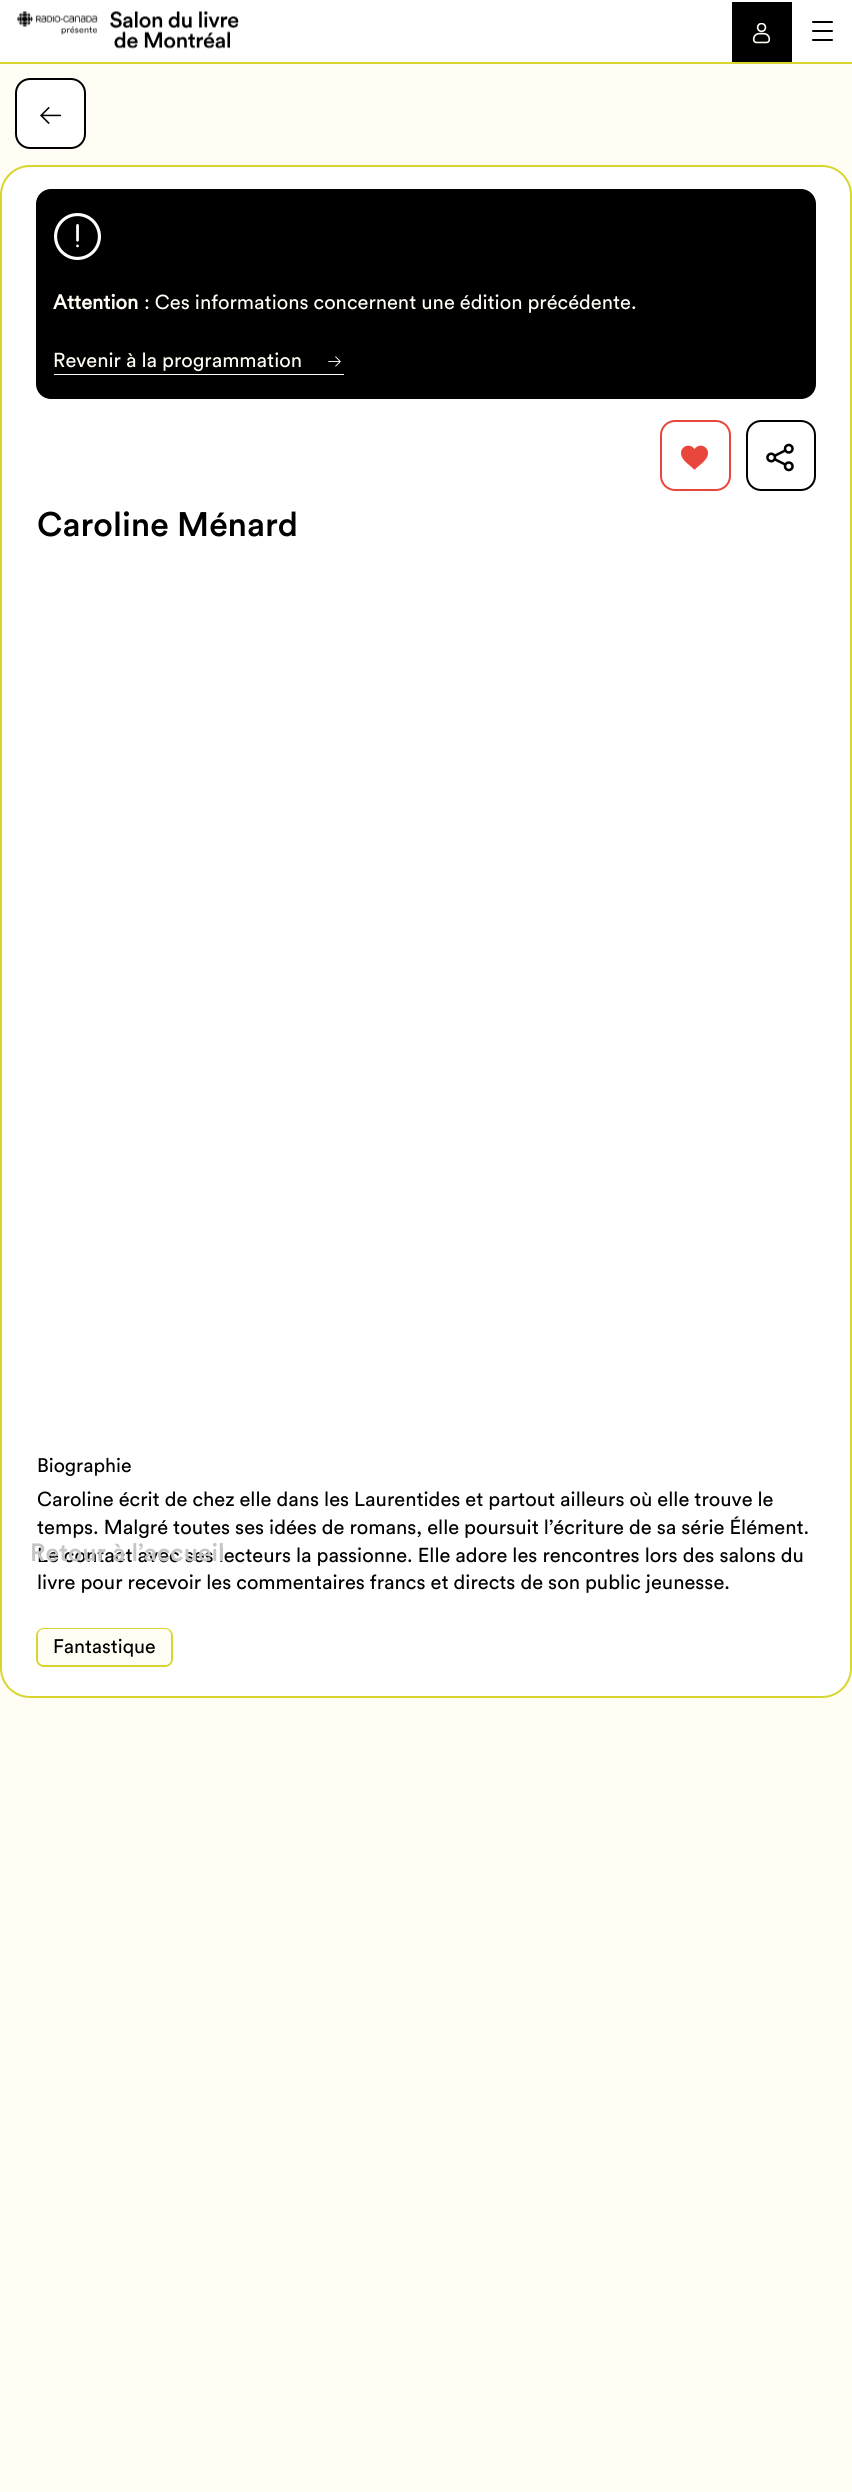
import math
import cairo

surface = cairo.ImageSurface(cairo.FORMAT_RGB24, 852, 2492)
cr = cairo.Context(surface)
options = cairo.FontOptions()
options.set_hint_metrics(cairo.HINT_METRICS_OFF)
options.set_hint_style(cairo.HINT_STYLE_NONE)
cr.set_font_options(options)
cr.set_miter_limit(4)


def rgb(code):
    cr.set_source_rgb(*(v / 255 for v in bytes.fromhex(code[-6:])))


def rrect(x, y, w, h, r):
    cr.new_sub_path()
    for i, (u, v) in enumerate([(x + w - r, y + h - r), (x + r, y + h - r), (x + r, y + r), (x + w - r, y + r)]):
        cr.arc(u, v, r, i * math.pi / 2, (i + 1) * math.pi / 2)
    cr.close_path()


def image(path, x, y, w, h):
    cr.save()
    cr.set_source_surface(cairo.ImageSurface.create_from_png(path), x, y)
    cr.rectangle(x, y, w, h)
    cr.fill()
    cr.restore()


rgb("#fffdf4")
cr.paint()
rgb("#ffffff")
cr.rectangle(0, 0, 852, 62)
cr.fill()
rgb("#d8d62e")
cr.rectangle(0, 62, 852, 2)
cr.fill()
image("img/1.png", 17, 10, 222, 39)
rgb("#000000")
cr.rectangle(732, 2, 60, 60)
cr.fill()
image("img/2.png", 752, 23, 19, 21)
rrect(812, 21, 21, 2, 1)
cr.fill()
rrect(812, 30, 21, 2, 1)
cr.fill()
rrect(812, 39, 21, 2, 1)
cr.fill()
rgb("#ffffff")
rrect(16, 79, 69, 69, 14)
cr.fill_preserve()
rgb("#000000")
cr.stroke()
image("img/3.png", 40, 107, 22, 17)
rgb("#ffffff")
rrect(1, 166, 850, 1531, 29)
cr.fill_preserve()
rgb("#d8d62e")
cr.stroke()
rgb("#000000")
rrect(36, 189, 780, 210, 15)
cr.fill()
image("img/4.png", 54, 213, 47, 47)
rgb("#fffdf4")
cr.rectangle(54, 374, 290, 1)
cr.fill()
image("img/5.png", 328, 356, 13, 11)
rrect(661, 421, 69, 69, 14)
rgb("#e9473d")
cr.stroke()
image("img/6.png", 681, 445, 27, 25)
rrect(747, 421, 68, 69, 14)
rgb("#000000")
cr.stroke()
image("img/7.png", 766, 443, 28, 29)
rrect(37, 1629, 135, 37, 7)
rgb("#d8d62e")
cr.stroke()
rgb("#fffdf4")
rrect(38, 1629, 133, 36, 6)
cr.fill()
cr.select_font_face("Circular", cairo.FONT_SLANT_NORMAL, cairo.FONT_WEIGHT_BOLD)
cr.set_font_size(20.05)
cr.move_to(53, 309)
cr.show_text("Attention")
cr.select_font_face("Circular")
cr.move_to(144, 309)
cr.show_text(": Ces informations concernent une édition précédente.")
cr.move_to(53, 367)
cr.show_text("Revenir à la programmation")
cr.select_font_face("Circular Medium")
cr.set_font_size(33.75)
rgb("#000000")
cr.move_to(37, 536)
cr.show_text("Caroline Ménard")
cr.select_font_face("Circular")
cr.set_font_size(19.5)
cr.move_to(37, 1472)
cr.show_text("Biographie")
cr.set_font_size(20.05)
for x, y, s in [
    (37, 1506, "Caroline écrit de chez elle dans les Laurentides et partout ailleurs où elle trouve le"),
    (37, 1534, "temps. Malgré toutes ses idées de romans, elle poursuit l’écriture de sa série Élément."),
    (37, 1562, "Le contact avec ses lecteurs la passionne. Elle adore les rencontres lors des salons du"),
    (37, 1589, "livre pour recevoir les commentaires francs et directs de son public jeunesse."),
]:
    cr.move_to(x, y)
    cr.show_text(s)
cr.set_font_size(19.5)
cr.move_to(53, 1653)
cr.show_text("Fantastique")
cr.select_font_face("Circular Medium")
cr.set_font_size(24.75)
rgb("#c5c5c5")
cr.move_to(30, 1561)
cr.show_text("Retour à l’accueil")
surface.write_to_png("page.png")
